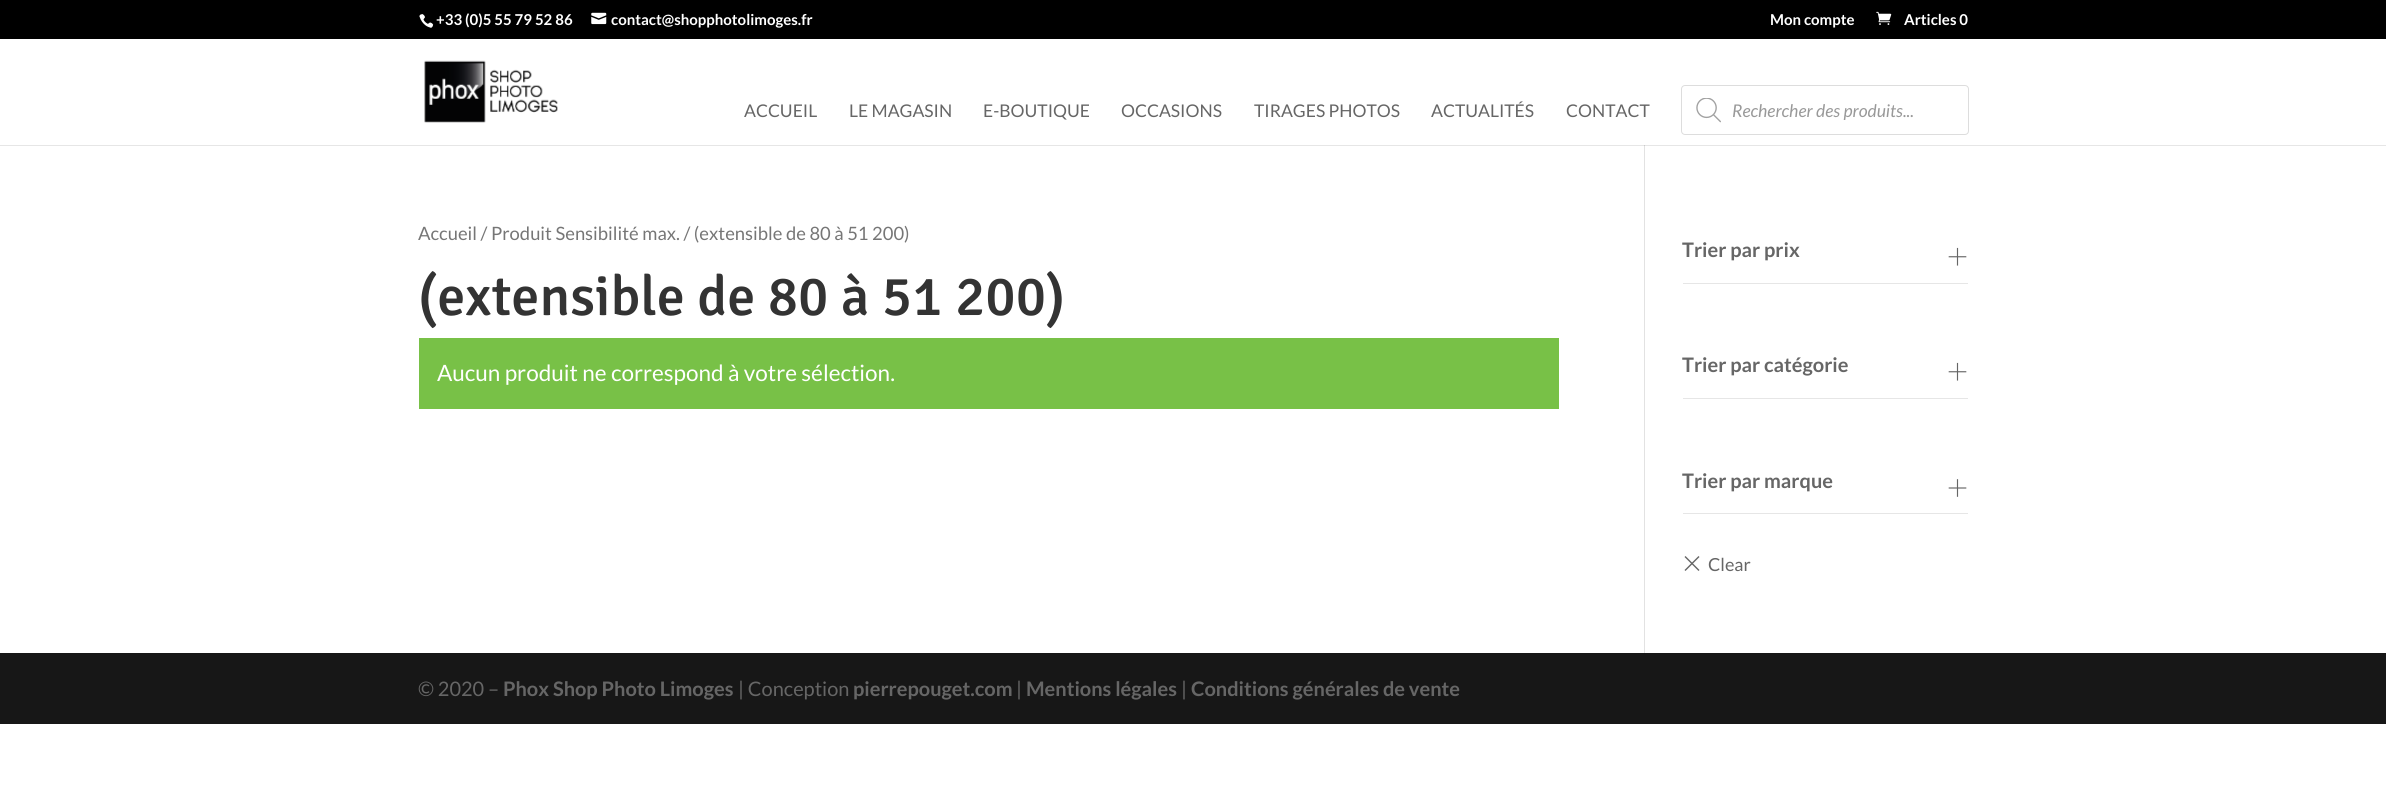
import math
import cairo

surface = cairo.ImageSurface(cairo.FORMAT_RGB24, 2386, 794)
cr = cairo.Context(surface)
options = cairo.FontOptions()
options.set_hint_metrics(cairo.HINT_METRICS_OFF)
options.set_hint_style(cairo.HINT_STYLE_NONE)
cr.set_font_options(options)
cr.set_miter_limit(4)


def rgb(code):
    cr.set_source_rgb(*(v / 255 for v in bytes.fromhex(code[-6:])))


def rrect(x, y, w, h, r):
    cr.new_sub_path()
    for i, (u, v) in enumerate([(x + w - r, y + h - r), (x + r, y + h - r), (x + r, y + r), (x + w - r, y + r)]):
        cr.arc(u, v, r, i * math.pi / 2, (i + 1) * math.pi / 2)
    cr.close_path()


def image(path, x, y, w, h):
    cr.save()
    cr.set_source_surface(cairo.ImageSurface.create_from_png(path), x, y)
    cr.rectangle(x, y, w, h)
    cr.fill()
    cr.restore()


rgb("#ffffff")
cr.paint()
rgb("#e6e6e6")
cr.rectangle(0, 145, 2386, 1)
cr.fill()
rgb("#000000")
cr.rectangle(0, 0, 2386, 39)
cr.fill()
image("img/1.png", 419, 14, 15, 14)
image("img/2.png", 591, 12, 16, 13)
image("img/3.png", 1876, 11, 16, 14)
rgb("#e2e2e2")
cr.rectangle(1644, 144, 1, 509)
cr.fill()
rgb("#ffffff")
cr.rectangle(1644, 144, 1, 1)
cr.fill()
image("img/4.png", 424, 60, 134, 63)
rrect(1681.5, 85.5, 287, 49, 3.5)
rgb("#dddddd")
cr.set_line_width(1)
cr.stroke()
image("img/5.png", 1696, 98, 25, 25)
for x, y, w, h, color in [
    (1644, 145, 1, 1, "#cbcbcb"),
    (419, 338, 1140, 71, "#78c147"),
    (1683, 283, 285, 1, "#e6e6e6"),
]:
    rgb(color)
    cr.rectangle(x, y, w, h)
    cr.fill()
image("img/6.png", 1948, 247, 19, 19)
cr.rectangle(1683, 398, 285, 1)
cr.fill()
image("img/6.png", 1948, 362, 19, 19)
cr.rectangle(1683, 513, 285, 1)
cr.fill()
image("img/7.png", 1948, 479, 19, 18)
rgb("#666666")
cr.new_path()
cr.move_to(1684.5, 570)
cr.line_to(1698.5, 556)
cr.line_to(1699.5, 557)
cr.line_to(1685.5, 571)
cr.close_path()
cr.fill()
cr.new_path()
cr.move_to(1685.5, 556)
cr.line_to(1699.5, 570)
cr.line_to(1698.5, 571)
cr.line_to(1684.5, 557)
cr.close_path()
cr.fill()
rgb("#171717")
cr.rectangle(0, 653, 2386, 71)
cr.fill()
cr.select_font_face("Lato", cairo.FONT_SLANT_NORMAL, cairo.FONT_WEIGHT_BOLD)
cr.set_font_size(15)
rgb("#ffffff")
for x, y, s in [
    (436, 25, "+33 (0)5 55 79 52 86"),
    (611, 25, "contact@shopphotolimoges.fr"),
    (1770, 25, "Mon compte"),
    (1904, 25, "Articles 0"),
]:
    cr.move_to(x, y)
    cr.show_text(s)
cr.select_font_face("Lato")
cr.set_font_size(17.5)
rgb("#666666")
for x, y, s in [
    (744, 117, "ACCUEIL"),
    (849, 117, "LE MAGASIN"),
    (983, 117, "E-BOUTIQUE"),
    (1121, 117, "OCCASIONS"),
    (1254, 117, "TIRAGES PHOTOS"),
    (1431, 117, "ACTUALITÉS"),
    (1566, 117, "CONTACT"),
]:
    cr.move_to(x, y)
    cr.show_text(s)
cr.select_font_face("Lato", cairo.FONT_SLANT_ITALIC)
rgb("#999999")
cr.move_to(1732, 117)
cr.show_text("Rechercher des produits...")
cr.select_font_face("Lato")
cr.set_font_size(18.4)
rgb("#767676")
cr.move_to(418, 240)
cr.show_text("Accueil / Produit Sensibilité max. / (extensible de 80 à 51 200)")
cr.select_font_face("Signika Light")
cr.set_font_size(56.25)
rgb("#333333")
cr.move_to(418, 315)
cr.show_text("(extensible de 80 à 51 200)")
cr.select_font_face("Lato")
cr.set_font_size(22.5)
rgb("#ffffff")
cr.move_to(437, 381)
cr.show_text("Aucun produit ne correspond à votre sélection.")
cr.select_font_face("Lato", cairo.FONT_SLANT_NORMAL, cairo.FONT_WEIGHT_BOLD)
cr.set_font_size(20)
rgb("#666666")
for x, y, s in [
    (1682, 257, "Trier par prix"),
    (1682, 372, "Trier par catégorie"),
    (1682, 488, "Trier par marque"),
]:
    cr.move_to(x, y)
    cr.show_text(s)
cr.select_font_face("Lato")
cr.set_font_size(18)
cr.move_to(1708, 571)
cr.show_text("Clear")
cr.set_font_size(20)
cr.move_to(418, 696)
cr.show_text("© 2020 –")
cr.select_font_face("Lato", cairo.FONT_SLANT_NORMAL, cairo.FONT_WEIGHT_BOLD)
cr.move_to(503, 696)
cr.show_text("Phox Shop Photo Limoges")
cr.select_font_face("Lato")
cr.move_to(738, 696)
cr.show_text("| Conception")
cr.select_font_face("Lato", cairo.FONT_SLANT_NORMAL, cairo.FONT_WEIGHT_BOLD)
cr.move_to(853, 696)
cr.show_text("pierrepouget.com")
cr.select_font_face("Lato")
cr.move_to(1016, 696)
cr.show_text("|")
cr.select_font_face("Lato", cairo.FONT_SLANT_NORMAL, cairo.FONT_WEIGHT_BOLD)
cr.move_to(1026, 696)
cr.show_text("Mentions légales")
cr.select_font_face("Lato")
cr.move_to(1181, 696)
cr.show_text("|")
cr.select_font_face("Lato", cairo.FONT_SLANT_NORMAL, cairo.FONT_WEIGHT_BOLD)
cr.move_to(1191, 696)
cr.show_text("Conditions générales de vente")
surface.write_to_png("page.png")
